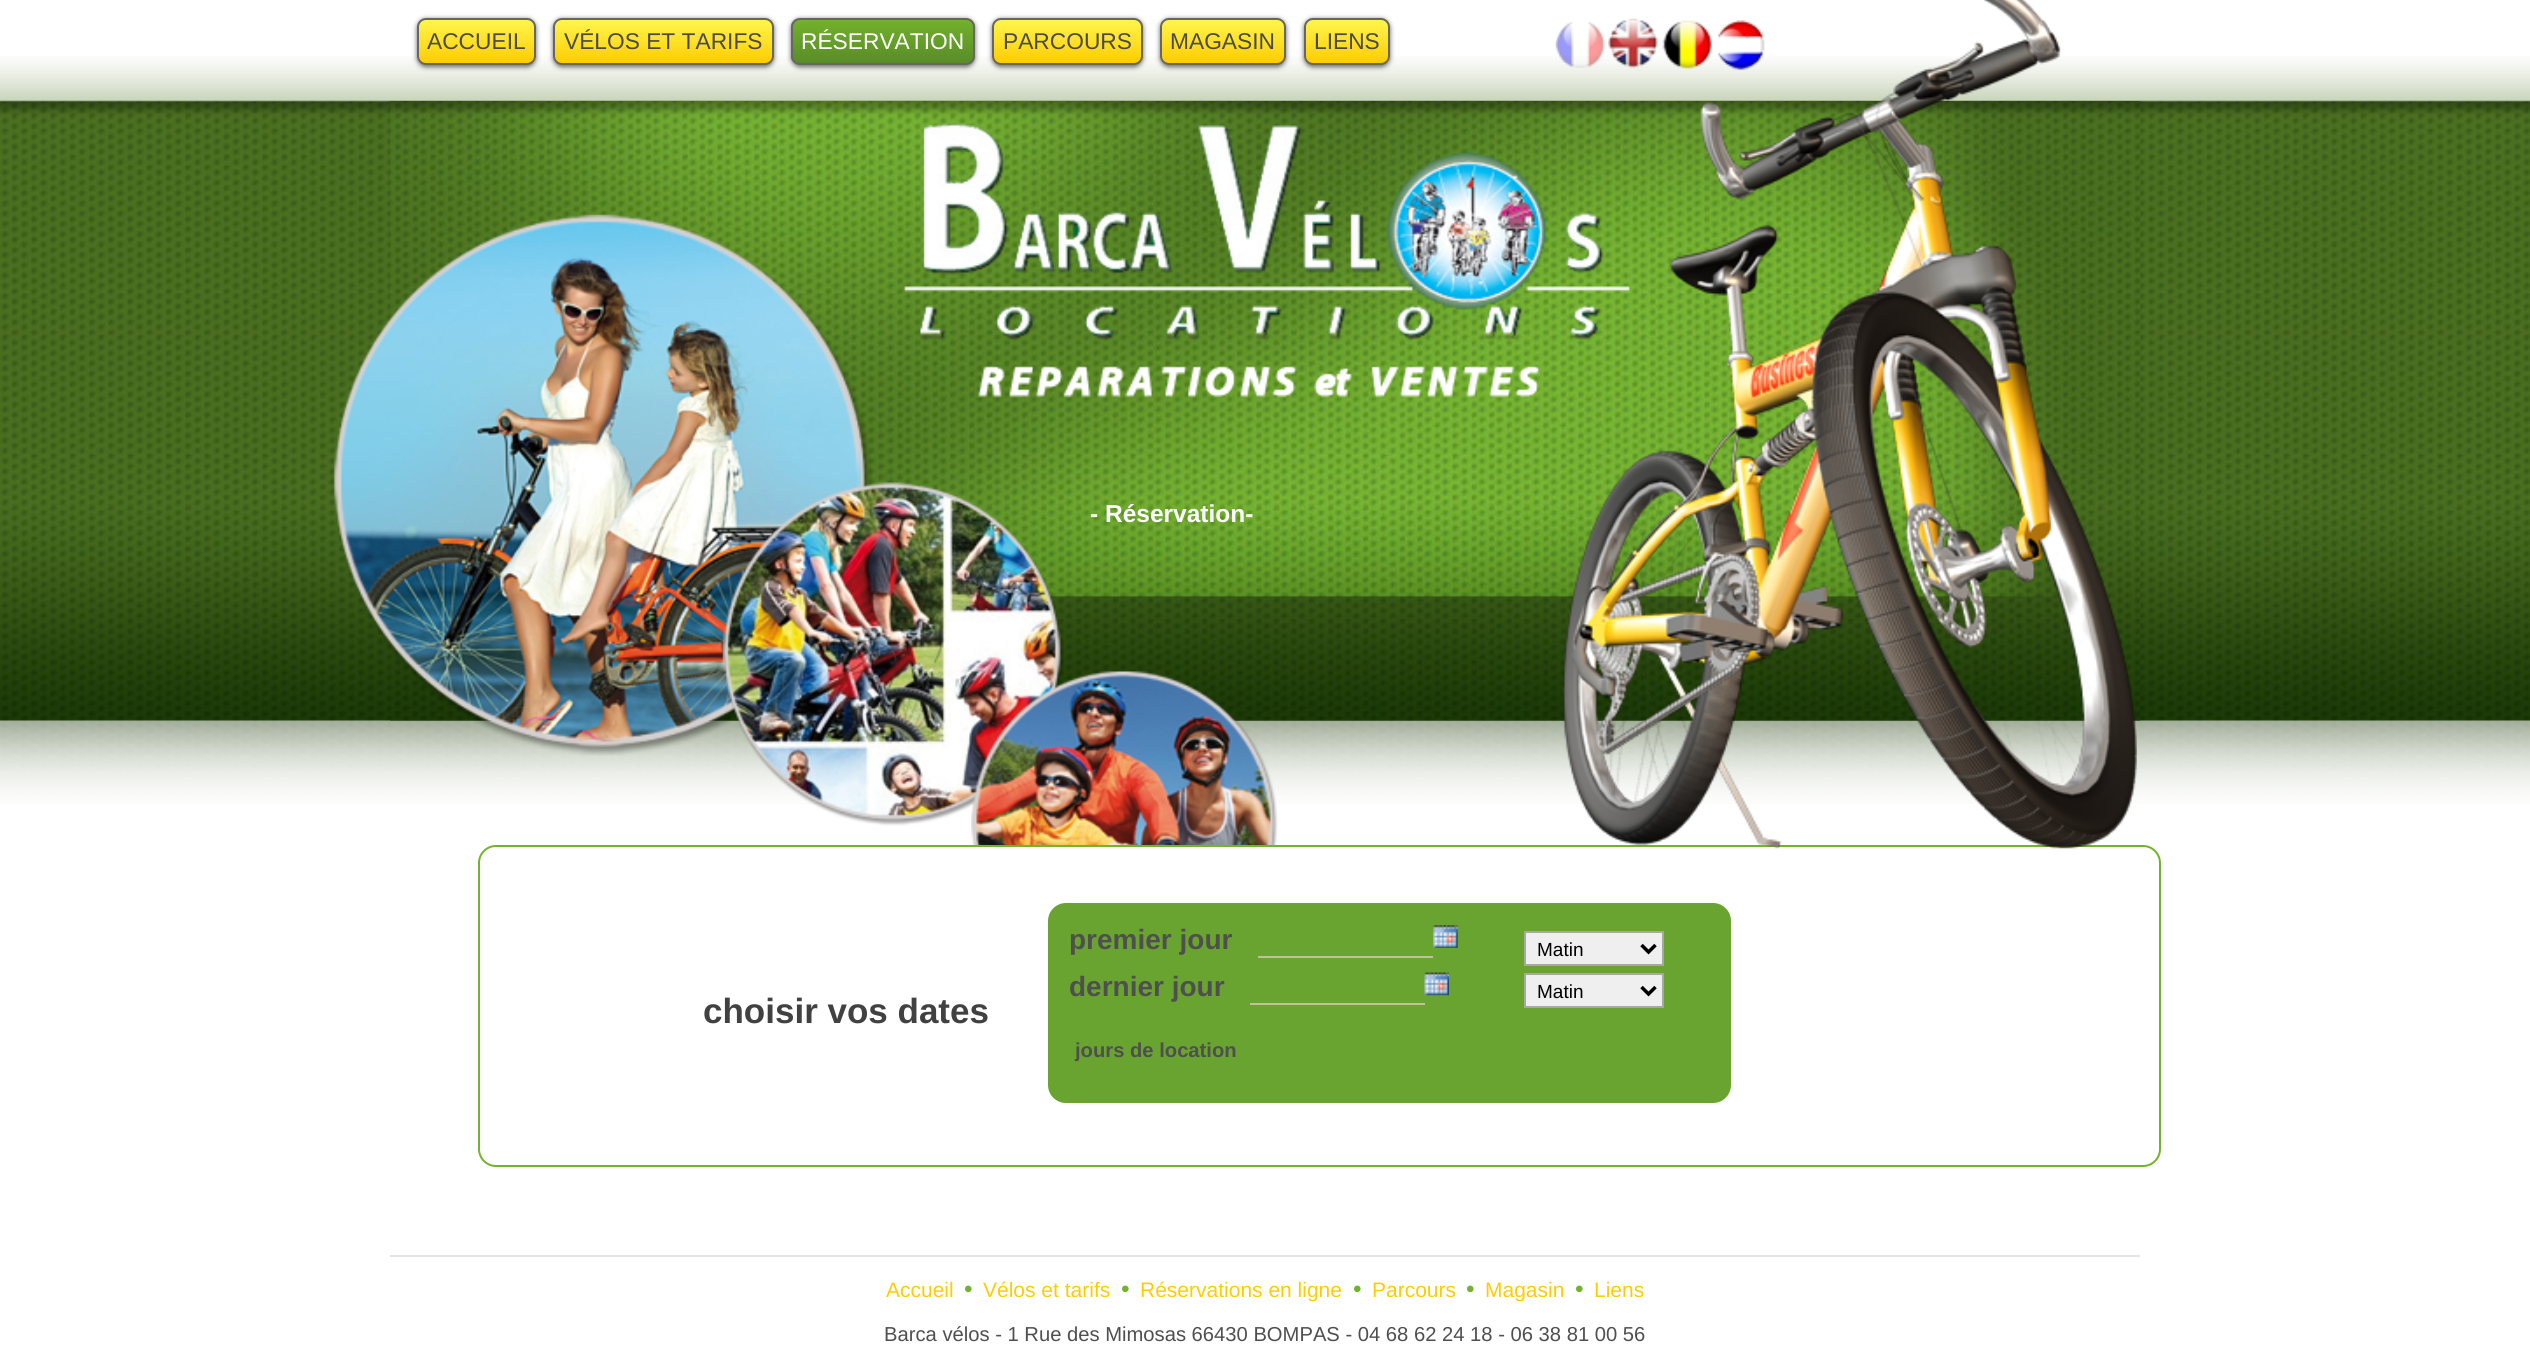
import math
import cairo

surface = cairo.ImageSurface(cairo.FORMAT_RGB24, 2530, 1353)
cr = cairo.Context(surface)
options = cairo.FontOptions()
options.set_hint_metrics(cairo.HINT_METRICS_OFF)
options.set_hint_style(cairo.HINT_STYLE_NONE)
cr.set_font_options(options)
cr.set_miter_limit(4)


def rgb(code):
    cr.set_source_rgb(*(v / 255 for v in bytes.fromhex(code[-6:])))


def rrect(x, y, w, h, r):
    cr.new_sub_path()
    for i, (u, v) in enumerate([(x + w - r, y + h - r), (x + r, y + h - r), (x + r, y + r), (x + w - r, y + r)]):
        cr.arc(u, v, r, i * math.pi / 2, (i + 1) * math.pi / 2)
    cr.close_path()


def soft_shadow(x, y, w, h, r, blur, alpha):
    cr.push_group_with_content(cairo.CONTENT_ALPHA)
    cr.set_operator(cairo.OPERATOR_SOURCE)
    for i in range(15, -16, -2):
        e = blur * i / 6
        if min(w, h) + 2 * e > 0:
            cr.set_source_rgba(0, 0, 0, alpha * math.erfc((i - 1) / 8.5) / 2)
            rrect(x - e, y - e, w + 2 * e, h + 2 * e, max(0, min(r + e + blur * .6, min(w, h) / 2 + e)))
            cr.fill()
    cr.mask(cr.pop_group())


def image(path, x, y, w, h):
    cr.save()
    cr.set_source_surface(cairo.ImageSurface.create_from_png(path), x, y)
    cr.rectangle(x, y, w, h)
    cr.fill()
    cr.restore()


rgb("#ffffff")
cr.paint()
image("img/1.png", 0, 56, 2530, 748)
image("img/11.png", 390, 101, 1751, 620)
image("img/9.png", 904, 123, 726, 275)
rrect(479, 846, 1681, 320, 17)
rgb("#73b42e")
cr.stroke()
image("img/2.png", 1562, 0, 575, 849)
rgb("#666666")
soft_shadow(417, 19, 119, 48, 9, 2.5, 1)
cr.save()
rrect(417, 18, 119, 47, 9)
cr.clip()
gradient = cairo.LinearGradient(418, 19, 418, 63)
gradient.add_color_stop_rgba(0, 1, 0.965, 0.31, 1)
gradient.add_color_stop_rgba(1, 1, 0.8, 0.004, 1)
cr.set_source(gradient)
cr.rectangle(417, 19, 119, 44)
cr.fill()
cr.restore()
rrect(418, 19, 117, 45, 8)
rgb("#666666")
cr.stroke()
rgb("#666666")
soft_shadow(553, 19, 221, 48, 9, 2.5, 1)
cr.save()
rrect(553, 18, 221, 47, 9)
cr.clip()
gradient = cairo.LinearGradient(555, 19, 555, 63)
gradient.add_color_stop_rgba(0, 1, 0.965, 0.31, 1)
gradient.add_color_stop_rgba(1, 1, 0.8, 0.004, 1)
cr.set_source(gradient)
cr.rectangle(553, 19, 221, 44)
cr.fill()
cr.restore()
rrect(554, 19, 219, 45, 8)
rgb("#666666")
cr.stroke()
rgb("#666666")
soft_shadow(791, 19, 184, 48, 9, 2.5, 1)
cr.save()
rrect(791, 18, 184, 47, 9)
cr.clip()
gradient = cairo.LinearGradient(793, 19, 793, 63)
gradient.add_color_stop_rgba(0, 0.451, 0.698, 0.176, 1)
gradient.add_color_stop_rgba(1, 0.349, 0.549, 0.153, 1)
cr.set_source(gradient)
cr.rectangle(791, 19, 184, 44)
cr.fill()
cr.restore()
rrect(792, 19, 182, 45, 8)
rgb("#666666")
cr.stroke()
rgb("#666666")
soft_shadow(992, 19, 151, 48, 9, 2.5, 1)
cr.save()
rrect(992, 18, 151, 47, 9)
cr.clip()
gradient = cairo.LinearGradient(994, 19, 994, 63)
gradient.add_color_stop_rgba(0, 1, 0.965, 0.31, 1)
gradient.add_color_stop_rgba(1, 1, 0.8, 0.004, 1)
cr.set_source(gradient)
cr.rectangle(992, 19, 151, 44)
cr.fill()
cr.restore()
rrect(993, 19, 149, 45, 8)
rgb("#666666")
cr.stroke()
rgb("#666666")
soft_shadow(1160, 19, 126, 48, 9, 2.5, 1)
cr.save()
rrect(1160, 18, 126, 47, 9)
cr.clip()
gradient = cairo.LinearGradient(1162, 19, 1162, 63)
gradient.add_color_stop_rgba(0, 1, 0.965, 0.31, 1)
gradient.add_color_stop_rgba(1, 1, 0.8, 0.004, 1)
cr.set_source(gradient)
cr.rectangle(1160, 19, 126, 44)
cr.fill()
cr.restore()
rrect(1161, 19, 124, 45, 8)
rgb("#666666")
cr.stroke()
rgb("#666666")
soft_shadow(1304, 19, 86, 48, 9, 2.5, 1)
cr.save()
rrect(1304, 18, 86, 47, 9)
cr.clip()
gradient = cairo.LinearGradient(1306, 19, 1306, 63)
gradient.add_color_stop_rgba(0, 1, 0.965, 0.31, 1)
gradient.add_color_stop_rgba(1, 1, 0.8, 0.004, 1)
cr.set_source(gradient)
cr.rectangle(1304, 19, 86, 44)
cr.fill()
cr.restore()
rrect(1305, 19, 84, 45, 8)
rgb("#666666")
cr.stroke()
image("img/3.png", 1555, 22, 50, 46)
image("img/4.png", 1608, 18, 53, 51)
image("img/5.png", 1662, 20, 50, 50)
image("img/6.png", 1717, 20, 48, 50)
image("img/7.png", 333, 214, 539, 542)
image("img/8.png", 722, 482, 342, 344)
image("img/10.png", 971, 671, 307, 174)
rgb("#69a430")
rrect(1048, 903, 683, 200, 18)
cr.fill()
image("img/12.png", 1433, 925, 25, 23)
rgb("#bfc199")
cr.rectangle(1258, 956, 175, 2)
cr.fill()
image("img/13.png", 1424, 972, 25, 24)
cr.rectangle(1250, 1003, 175, 2)
cr.fill()
rgb("#efefef")
cr.rectangle(1525, 932, 138, 33)
cr.fill_preserve()
rgb("#a7a7a7")
cr.stroke()
cr.new_path()
cr.move_to(1641.5, 945)
cr.line_to(1648.5, 952)
cr.line_to(1655.5, 945)
rgb("#000000")
cr.set_line_width(3.5)
cr.stroke()
rgb("#efefef")
cr.rectangle(1525, 974, 138, 33)
cr.fill_preserve()
rgb("#a7a7a7")
cr.set_line_width(2)
cr.stroke()
cr.new_path()
cr.move_to(1641.5, 987)
cr.line_to(1648.5, 994)
cr.line_to(1655.5, 987)
rgb("#000000")
cr.set_line_width(3.5)
cr.stroke()
rgb("#e5e5e5")
cr.rectangle(390, 1255, 1750, 2)
cr.fill()
cr.select_font_face("Liberation Sans")
cr.set_font_size(22.75)
rgb("#4a4a49")
cr.move_to(427, 49)
cr.show_text("ACCUEIL")
cr.move_to(564, 49)
cr.show_text("VÉLOS ET TARIFS")
rgb("#ffffff")
cr.move_to(801, 49)
cr.show_text("RÉSERVATION")
rgb("#4a4a49")
for x, y, s in [
    (1003, 49, "PARCOURS"),
    (1170, 49, "MAGASIN"),
    (1314, 49, "LIENS"),
]:
    cr.move_to(x, y)
    cr.show_text(s)
cr.select_font_face("Liberation Sans", cairo.FONT_SLANT_NORMAL, cairo.FONT_WEIGHT_BOLD)
cr.set_font_size(24.5)
rgb("#ffffff")
cr.move_to(1090, 522)
cr.show_text("- Réservation-")
cr.set_font_size(35)
rgb("#414141")
cr.move_to(703, 1023)
cr.show_text("choisir vos dates")
cr.set_font_size(28)
rgb("#4f4f4f")
cr.move_to(1069, 949)
cr.show_text("premier jour")
cr.move_to(1069, 996)
cr.show_text("dernier jour")
cr.set_font_size(20.2)
cr.move_to(1075, 1057)
cr.show_text("jours de location")
cr.select_font_face("Liberation Sans")
cr.set_font_size(19)
rgb("#000000")
cr.move_to(1537, 956)
cr.show_text("Matin")
cr.move_to(1537, 998)
cr.show_text("Matin")
cr.set_font_size(21)
rgb("#ffcc01")
cr.move_to(886, 1297)
cr.show_text("Accueil")
cr.set_font_size(24.5)
rgb("#73b22d")
cr.move_to(964, 1297)
cr.show_text("•")
cr.set_font_size(21)
rgb("#ffcc01")
cr.move_to(983, 1297)
cr.show_text("Vélos et tarifs")
cr.set_font_size(24.5)
rgb("#73b22d")
cr.move_to(1121, 1297)
cr.show_text("•")
cr.set_font_size(21)
rgb("#ffcc01")
cr.move_to(1140, 1297)
cr.show_text("Réservations en ligne")
cr.set_font_size(24.5)
rgb("#73b22d")
cr.move_to(1353, 1297)
cr.show_text("•")
cr.set_font_size(21)
rgb("#ffcc01")
cr.move_to(1372, 1297)
cr.show_text("Parcours")
cr.set_font_size(24.5)
rgb("#73b22d")
cr.move_to(1466, 1297)
cr.show_text("•")
cr.set_font_size(21)
rgb("#ffcc01")
cr.move_to(1485, 1297)
cr.show_text("Magasin")
cr.set_font_size(24.5)
rgb("#73b22d")
cr.move_to(1575, 1297)
cr.show_text("•")
cr.set_font_size(21)
rgb("#ffcc01")
cr.move_to(1594, 1297)
cr.show_text("Liens")
cr.set_font_size(20.2)
rgb("#4f4f4f")
cr.move_to(884, 1341)
cr.show_text("Barca vélos - 1 Rue des Mimosas 66430 BOMPAS - 04 68 62 24 18 - 06 38 81 00 56")
surface.write_to_png("page.png")
